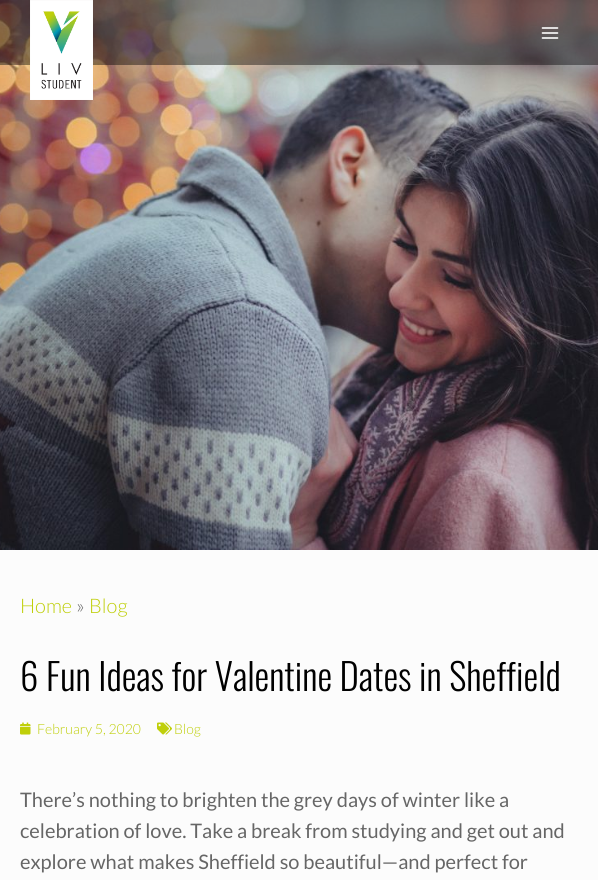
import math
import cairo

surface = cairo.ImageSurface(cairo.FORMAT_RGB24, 598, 880)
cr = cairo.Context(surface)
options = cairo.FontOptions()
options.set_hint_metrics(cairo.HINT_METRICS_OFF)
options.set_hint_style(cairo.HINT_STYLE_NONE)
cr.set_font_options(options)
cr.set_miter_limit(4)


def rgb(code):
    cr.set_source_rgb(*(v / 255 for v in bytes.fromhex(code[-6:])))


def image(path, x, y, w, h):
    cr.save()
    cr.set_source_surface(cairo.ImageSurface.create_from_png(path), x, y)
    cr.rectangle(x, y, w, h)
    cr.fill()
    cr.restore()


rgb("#fcfcfc")
cr.paint()
image("img/3.png", 0, 0, 598, 550)
cr.set_source_rgba(0, 0, 0, 0.42)
cr.rectangle(0, 0, 598, 65)
cr.fill()
image("img/1.png", 30, 0, 63, 100)
image("img/2.png", 541, 27, 18, 12)
image("img/4.png", 20, 722, 11, 13)
image("img/5.png", 157, 722, 15, 13)
cr.select_font_face("Lato Light")
cr.set_font_size(20)
rgb("#bfcf0a")
cr.move_to(20, 613)
cr.show_text("Home")
rgb("#666666")
cr.move_to(76, 613)
cr.show_text("»")
rgb("#bfcf0a")
cr.move_to(89, 613)
cr.show_text("Blog")
cr.select_font_face("Oswald Light")
cr.set_font_size(37)
rgb("#000000")
cr.move_to(20, 691)
cr.show_text("6 Fun Ideas for Valentine Dates in Sheffield")
cr.select_font_face("Lato Light")
cr.set_font_size(14)
rgb("#bfcf0a")
cr.move_to(37, 734)
cr.show_text("February 5, 2020")
cr.move_to(174, 734)
cr.show_text("Blog")
cr.select_font_face("Lato")
cr.set_font_size(20)
rgb("#666666")
for x, y, s in [
    (20, 807, "There’s nothing to brighten the grey days of winter like a"),
    (20, 838, "celebration of love. Take a break from studying and get out and"),
    (20, 869, "explore what makes Sheffield so beautiful—and perfect for"),
]:
    cr.move_to(x, y)
    cr.show_text(s)
surface.write_to_png("page.png")
